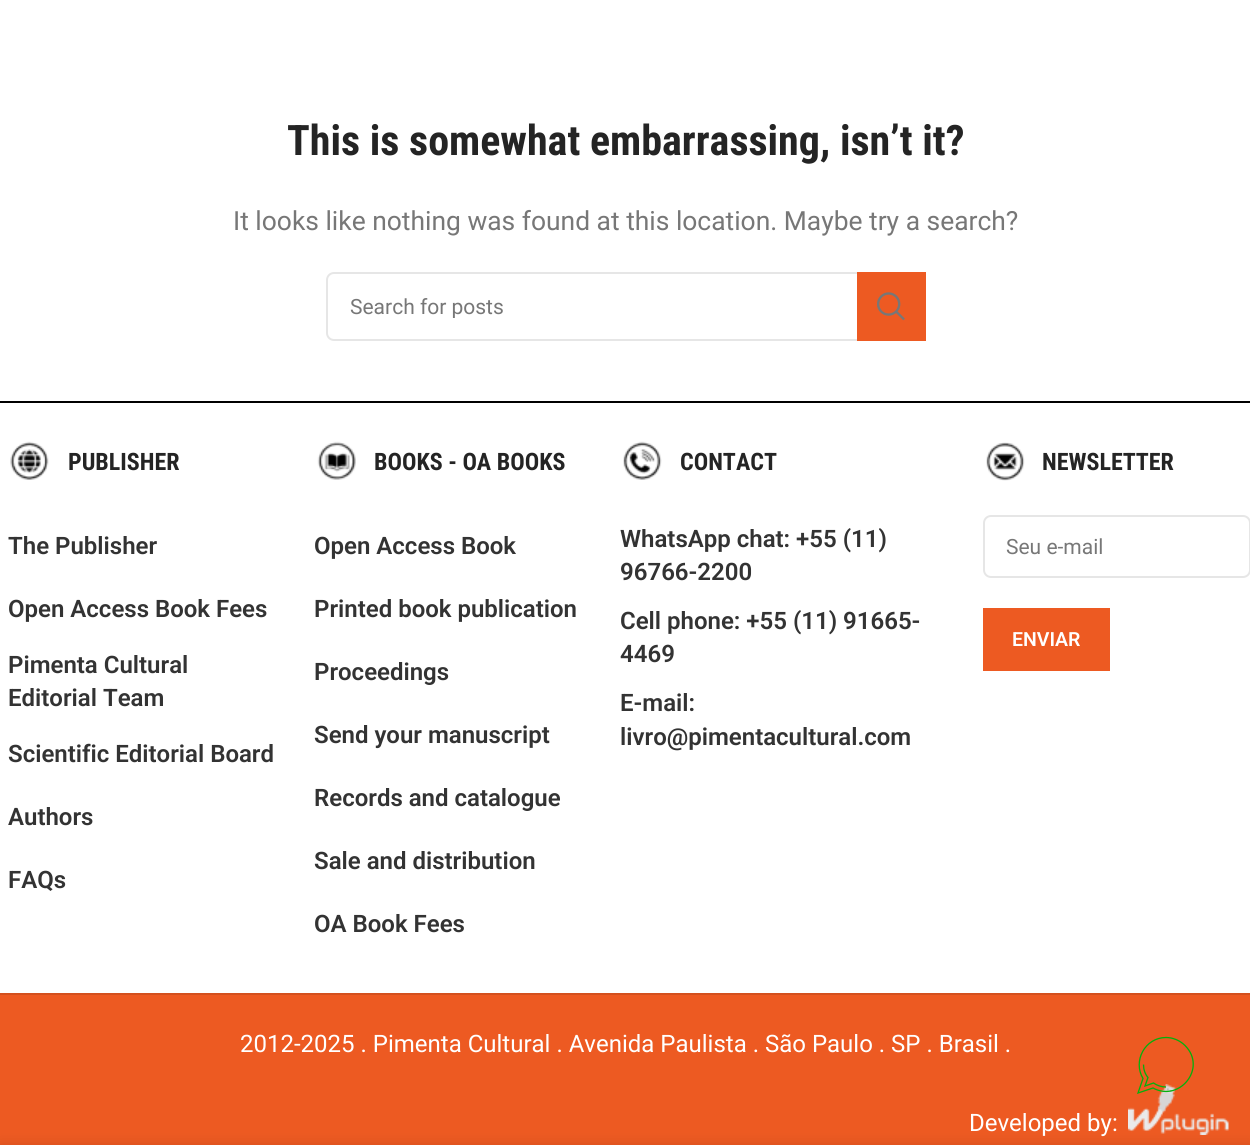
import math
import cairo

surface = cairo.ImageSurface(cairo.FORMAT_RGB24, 1250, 1145)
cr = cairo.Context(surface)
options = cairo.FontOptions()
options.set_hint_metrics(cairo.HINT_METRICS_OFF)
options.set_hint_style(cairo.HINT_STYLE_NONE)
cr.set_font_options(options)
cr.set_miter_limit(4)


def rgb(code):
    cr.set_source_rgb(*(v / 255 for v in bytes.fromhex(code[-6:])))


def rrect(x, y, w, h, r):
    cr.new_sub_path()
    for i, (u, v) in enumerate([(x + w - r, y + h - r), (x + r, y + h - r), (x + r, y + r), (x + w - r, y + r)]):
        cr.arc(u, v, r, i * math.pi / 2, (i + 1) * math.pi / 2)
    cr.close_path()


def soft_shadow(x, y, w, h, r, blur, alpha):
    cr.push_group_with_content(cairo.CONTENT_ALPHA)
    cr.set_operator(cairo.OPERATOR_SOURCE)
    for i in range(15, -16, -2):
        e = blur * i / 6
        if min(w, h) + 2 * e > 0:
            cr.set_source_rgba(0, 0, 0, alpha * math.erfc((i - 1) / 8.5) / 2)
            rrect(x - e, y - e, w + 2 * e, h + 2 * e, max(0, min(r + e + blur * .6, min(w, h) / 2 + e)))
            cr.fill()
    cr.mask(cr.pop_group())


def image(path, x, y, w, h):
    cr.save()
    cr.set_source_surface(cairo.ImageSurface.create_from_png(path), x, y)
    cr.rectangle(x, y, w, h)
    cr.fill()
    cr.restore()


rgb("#ffffff")
cr.paint()
rrect(327, 273, 598, 67, 7)
rgb("#e6e6e6")
cr.stroke()
rgb("#ed5a22")
cr.rectangle(857, 272, 69, 69)
cr.fill()
image("img/1.png", 877, 292, 28, 29)
rgb("#000000")
cr.rectangle(0, 401, 1250, 2)
cr.fill()
image("img/2.png", 10, 441, 39, 39)
image("img/3.png", 317, 441, 39, 39)
image("img/4.png", 623, 441, 39, 39)
image("img/5.png", 986, 442, 39, 39)
rrect(984, 516, 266, 61, 7)
rgb("#e6e6e6")
cr.stroke()
rgb("#ed5a22")
cr.rectangle(983, 608, 127, 63)
cr.fill()
cr.rectangle(0, 995, 1250, 150)
cr.fill()
image("img/6.png", 1128, 1084, 101, 51)
cr.new_path()
cr.move_to(1166, 1087)
cr.curve_to(1161.5, 1087, 1157, 1085.5, 1153.5, 1083)
cr.line_to(1145, 1086)
cr.line_to(1148, 1077.5)
cr.curve_to(1145, 1074, 1143.5, 1069.5, 1143.5, 1064.5)
cr.move_to(1166, 1037.5)
cr.curve_to(1145, 1037.5, 1132.5, 1061, 1143, 1078.5)
cr.line_to(1138, 1093)
cr.line_to(1153, 1088)
cr.curve_to(1179.5, 1102.5, 1207.5, 1068, 1185, 1045.5)
cr.curve_to(1180, 1040.5, 1173, 1037.5, 1166, 1037.5)
cr.close_path()
rgb("#03b10c")
cr.set_line_width(1.3)
cr.stroke()
rgb("#d4501e")
cr.rectangle(0, 993, 1250, 2)
cr.fill()
rgb("#000000")
soft_shadow(0, 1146, 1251, 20, 0, 7, 0.14)
cr.select_font_face("Roboto Condensed", cairo.FONT_SLANT_NORMAL, cairo.FONT_WEIGHT_BOLD)
cr.set_font_size(42)
rgb("#242424")
cr.move_to(287, 155)
cr.show_text("This is somewhat embarrassing, isn’t it?")
cr.select_font_face("Roboto")
cr.set_font_size(26.4)
rgb("#777777")
cr.move_to(233, 230)
cr.show_text("It looks like nothing was found at this location. Maybe try a search?")
cr.save()
cr.rectangle(350, 294, 460, 24)
cr.clip()
cr.set_font_size(21)
cr.move_to(350, 314)
cr.show_text("Search for posts")
cr.restore()
cr.select_font_face("Roboto Condensed", cairo.FONT_SLANT_NORMAL, cairo.FONT_WEIGHT_BOLD)
cr.set_font_size(24)
rgb("#242424")
cr.move_to(68, 470)
cr.show_text("PUBLISHER")
cr.select_font_face("Roboto SemiBold")
rgb("#333333")
for x, y, s in [
    (8, 554, "The Publisher"),
    (8, 617, "Open Access Book Fees"),
    (8, 673, "Pimenta Cultural"),
    (8, 706, "Editorial Team"),
    (8, 762, "Scientific Editorial Board"),
    (8, 825, "Authors"),
    (8, 888, "FAQs"),
]:
    cr.move_to(x, y)
    cr.show_text(s)
cr.select_font_face("Roboto Condensed", cairo.FONT_SLANT_NORMAL, cairo.FONT_WEIGHT_BOLD)
rgb("#242424")
cr.move_to(374, 470)
cr.show_text("BOOKS - OA BOOKS")
cr.select_font_face("Roboto SemiBold")
rgb("#333333")
for x, y, s in [
    (314, 554, "Open Access Book"),
    (314, 617, "Printed book publication"),
    (314, 680, "Proceedings"),
    (314, 743, "Send your manuscript"),
    (314, 806, "Records and catalogue"),
    (314, 869, "Sale and distribution"),
    (314, 932, "OA Book Fees"),
]:
    cr.move_to(x, y)
    cr.show_text(s)
cr.select_font_face("Roboto Condensed", cairo.FONT_SLANT_NORMAL, cairo.FONT_WEIGHT_BOLD)
rgb("#242424")
cr.move_to(680, 470)
cr.show_text("CONTACT")
cr.select_font_face("Roboto SemiBold")
rgb("#333333")
for x, y, s in [
    (620, 547, "WhatsApp chat: +55 (11)"),
    (620, 580, "96766-2200"),
    (620, 629, "Cell phone: +55 (11) 91665-"),
    (620, 662, "4469"),
    (620, 711, "E-mail:"),
    (620, 745, "livro@pimentacultural.com"),
]:
    cr.move_to(x, y)
    cr.show_text(s)
cr.select_font_face("Roboto Condensed", cairo.FONT_SLANT_NORMAL, cairo.FONT_WEIGHT_BOLD)
rgb("#242424")
cr.move_to(1042, 470)
cr.show_text("NEWSLETTER")
cr.select_font_face("Roboto")
cr.set_font_size(21)
rgb("#777777")
cr.move_to(1006, 554)
cr.show_text("Seu e-mail")
cr.select_font_face("Roboto SemiBold")
cr.set_font_size(19.5)
rgb("#ffffff")
cr.move_to(1012, 646)
cr.show_text("ENVIAR")
cr.select_font_face("Roboto")
cr.set_font_size(24)
cr.move_to(240, 1052)
cr.show_text("2012-2025 . Pimenta Cultural . Avenida Paulista . São Paulo . SP . Brasil .")
cr.move_to(969, 1131)
cr.show_text("Developed by:")
surface.write_to_png("page.png")
